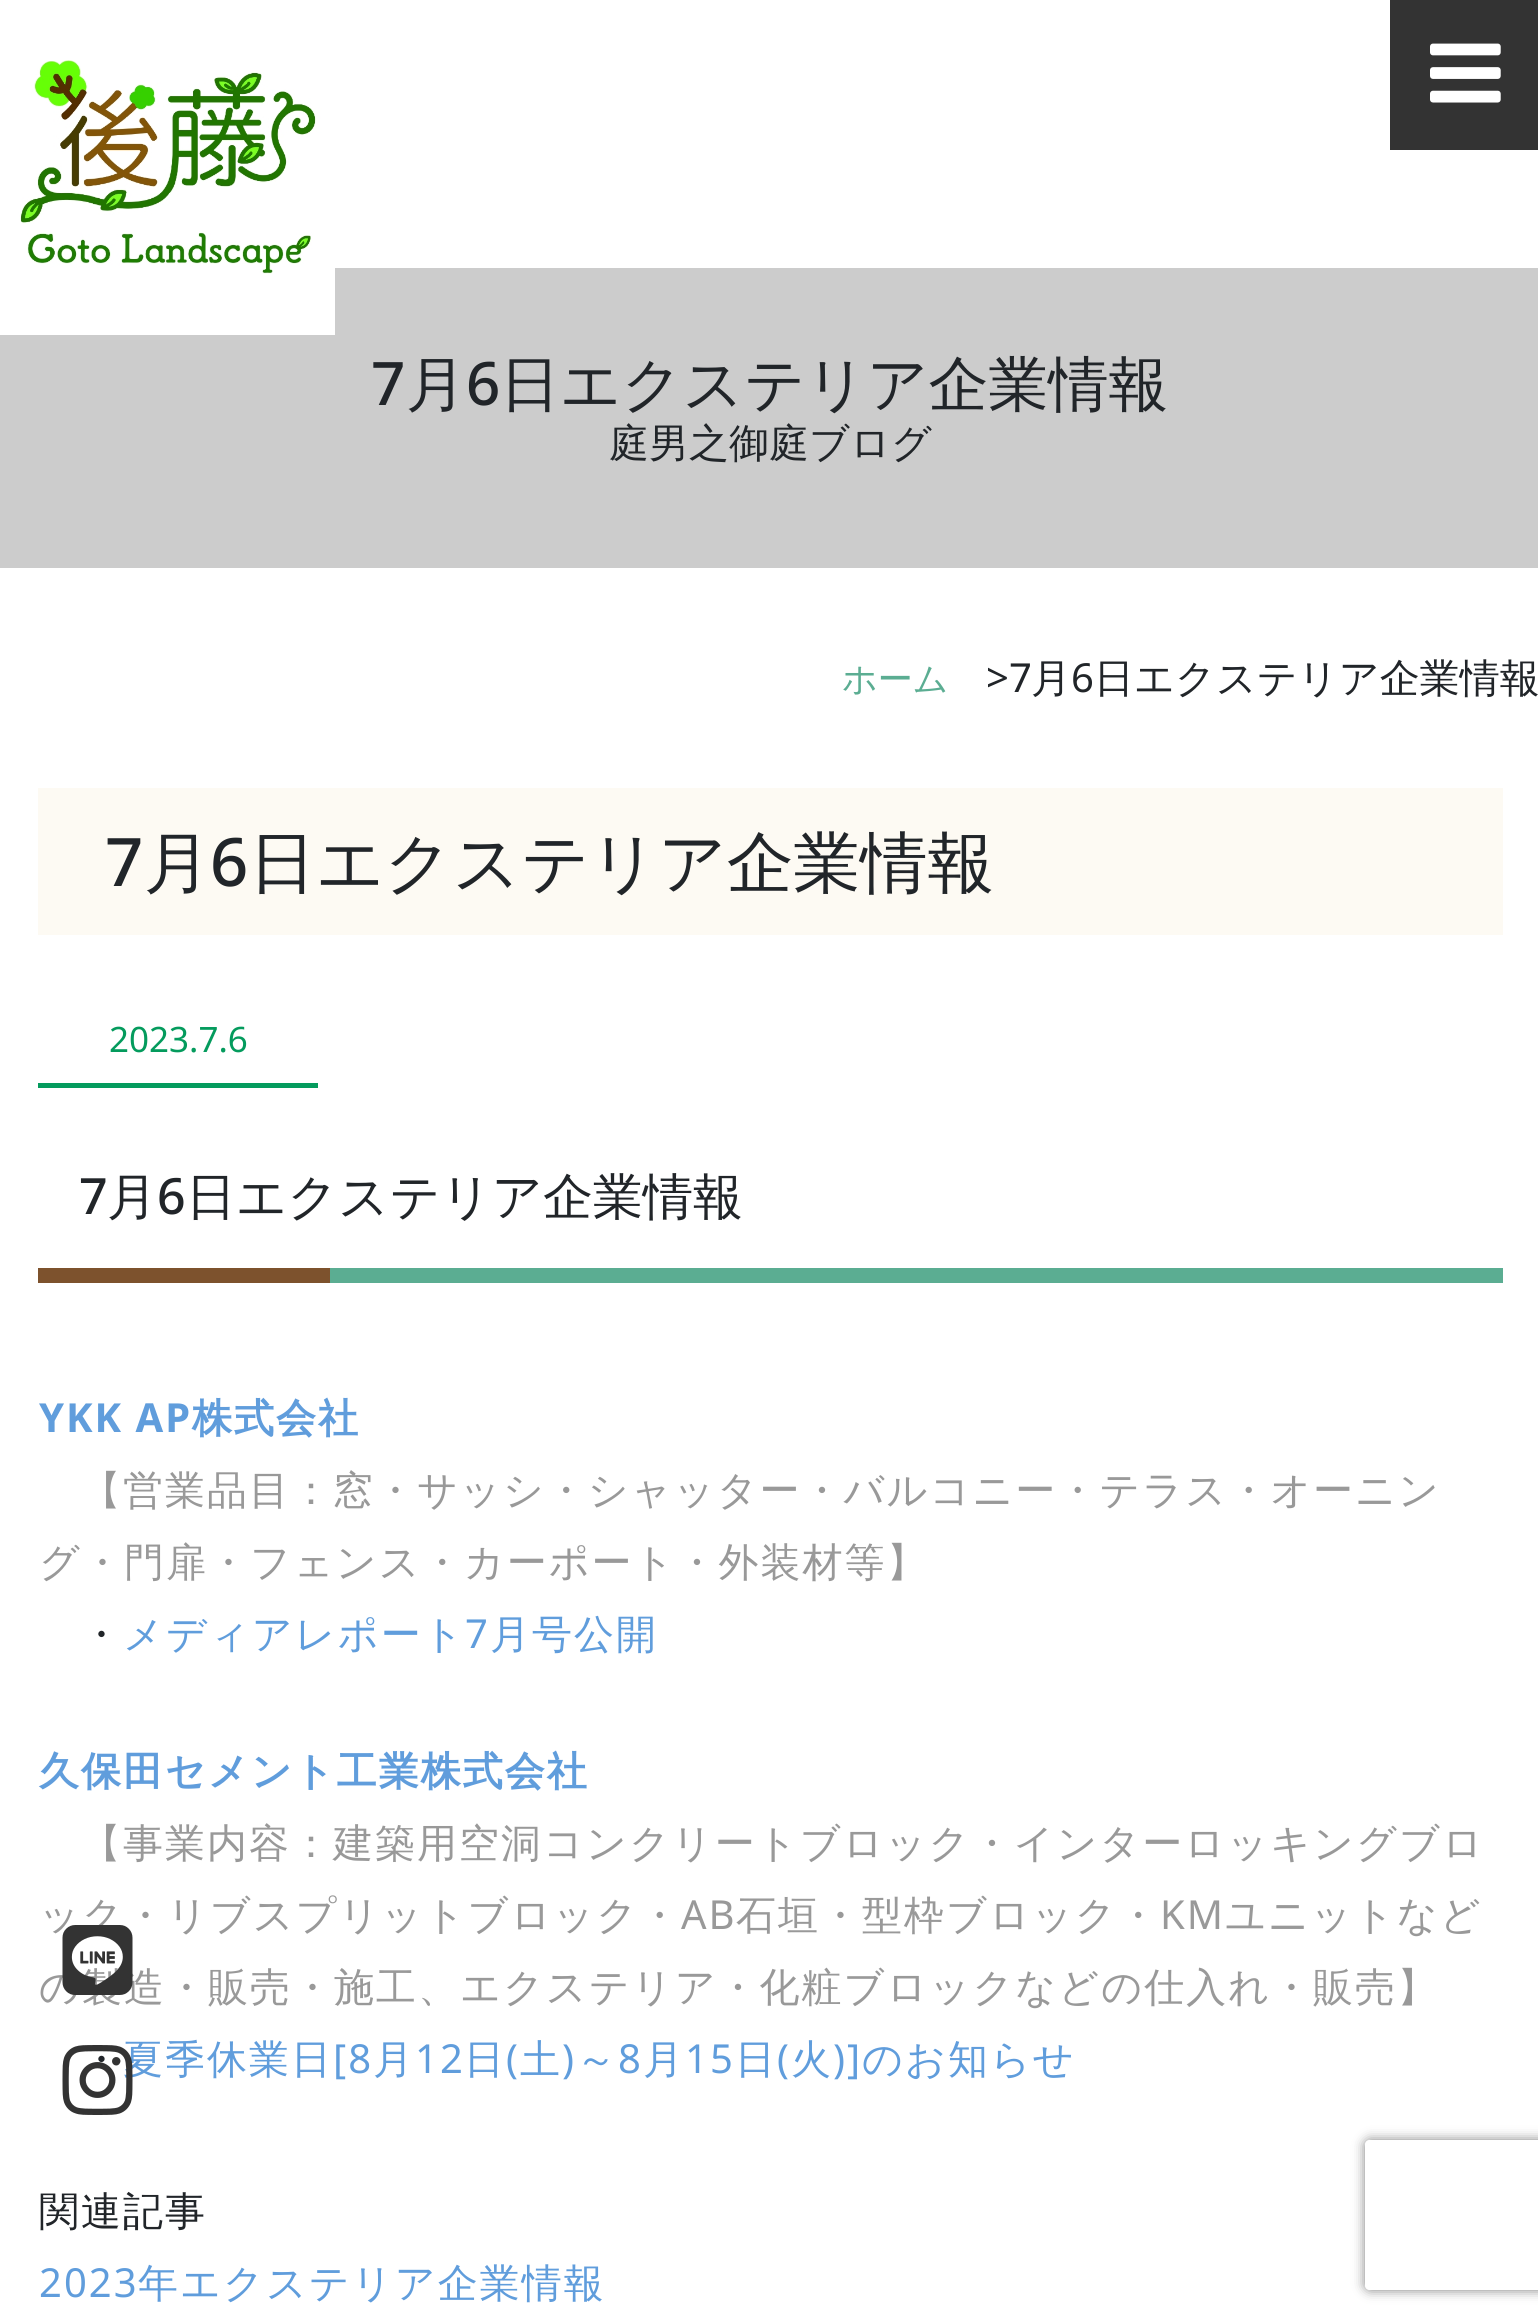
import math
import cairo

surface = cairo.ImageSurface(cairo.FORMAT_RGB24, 1538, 2324)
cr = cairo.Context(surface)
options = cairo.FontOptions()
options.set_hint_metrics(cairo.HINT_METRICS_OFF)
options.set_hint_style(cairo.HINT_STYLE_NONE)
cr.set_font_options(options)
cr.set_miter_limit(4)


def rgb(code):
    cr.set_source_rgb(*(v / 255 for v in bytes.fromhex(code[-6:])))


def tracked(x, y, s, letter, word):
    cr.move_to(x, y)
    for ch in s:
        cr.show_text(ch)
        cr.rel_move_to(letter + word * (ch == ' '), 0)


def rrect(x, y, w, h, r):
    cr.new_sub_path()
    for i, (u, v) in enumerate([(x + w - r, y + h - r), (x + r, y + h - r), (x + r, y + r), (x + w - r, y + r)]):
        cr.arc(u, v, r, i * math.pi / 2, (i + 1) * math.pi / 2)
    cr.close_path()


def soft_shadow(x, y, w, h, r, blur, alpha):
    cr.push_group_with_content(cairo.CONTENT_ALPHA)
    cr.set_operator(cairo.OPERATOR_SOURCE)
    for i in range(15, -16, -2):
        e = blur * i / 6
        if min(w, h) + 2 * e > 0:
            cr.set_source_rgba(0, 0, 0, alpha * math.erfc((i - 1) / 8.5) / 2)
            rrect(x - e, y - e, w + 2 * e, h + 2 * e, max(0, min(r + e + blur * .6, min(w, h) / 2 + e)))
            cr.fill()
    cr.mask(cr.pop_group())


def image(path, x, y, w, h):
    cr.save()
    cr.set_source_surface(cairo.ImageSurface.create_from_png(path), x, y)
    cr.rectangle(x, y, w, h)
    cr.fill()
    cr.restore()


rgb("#ffffff")
cr.paint()
rgb("#cccccc")
cr.rectangle(0, 268, 1538, 300)
cr.fill()
image("img/1.png", 0, 60, 335, 275)
rgb("#333333")
cr.rectangle(1390, 0, 148, 150)
cr.fill()
image("img/2.png", 1430, 43, 71, 60)
for x, y, w, h, color in [
    (38, 788, 1465, 147, "#fdfaf3"),
    (38, 1083, 280, 5, "#049b5d"),
    (330, 1268, 1173, 15, "#5bad92"),
    (38, 1268, 292, 15, "#7d522d"),
]:
    rgb(color)
    cr.rectangle(x, y, w, h)
    cr.fill()
cr.save()
cr.set_fill_rule(cairo.FILL_RULE_EVEN_ODD)
cr.new_path()
cr.move_to(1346, 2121)
cr.line_to(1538, 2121)
cr.line_to(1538, 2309)
cr.line_to(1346, 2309)
cr.close_path()
cr.move_to(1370, 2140)
cr.line_to(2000, 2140)
cr.curve_to(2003, 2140, 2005, 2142, 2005, 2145)
cr.line_to(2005, 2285)
cr.curve_to(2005, 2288, 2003, 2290, 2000, 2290)
cr.line_to(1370, 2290)
cr.curve_to(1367, 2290, 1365, 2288, 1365, 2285)
cr.line_to(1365, 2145)
cr.curve_to(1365, 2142, 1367, 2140, 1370, 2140)
cr.close_path()
cr.clip()
rgb("#808080")
soft_shadow(1365, 2140, 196, 150, 5, 6, 1)
cr.restore()
cr.select_font_face("Noto Sans Medium")
cr.set_font_size(60)
rgb("#212529")
cr.move_to(371, 405)
cr.show_text("7")
cr.select_font_face("WenQuanYi Zen Hei Medium")
cr.move_to(406, 405)
cr.show_text("月")
cr.select_font_face("Noto Sans Medium")
cr.move_to(466, 405)
cr.show_text("6")
cr.select_font_face("WenQuanYi Zen Hei Medium")
cr.move_to(500, 405)
cr.show_text("日エクステリア企業情報")
cr.set_font_size(40)
cr.move_to(609, 457)
cr.show_text("庭男之御庭ブログ")
cr.set_font_size(35)
rgb("#5bad92")
cr.move_to(842, 691)
cr.show_text("ホーム")
cr.select_font_face("Noto Sans")
cr.set_font_size(40)
rgb("#212529")
cr.move_to(986, 692)
cr.show_text(">7")
cr.select_font_face("WenQuanYi Zen Hei Medium")
cr.move_to(1031, 692)
cr.show_text("月")
cr.select_font_face("Noto Sans")
cr.move_to(1071, 692)
cr.show_text("6")
cr.select_font_face("WenQuanYi Zen Hei Medium")
cr.move_to(1094, 692)
cr.show_text("日エクステリア企業情報")
cr.select_font_face("Noto Sans Medium")
cr.set_font_size(66.9)
cr.move_to(105, 886)
cr.show_text("7")
cr.select_font_face("WenQuanYi Zen Hei Medium")
cr.move_to(144, 886)
cr.show_text("月")
cr.select_font_face("Noto Sans Medium")
cr.move_to(210, 886)
cr.show_text("6")
cr.select_font_face("WenQuanYi Zen Hei Medium")
cr.move_to(249, 886)
cr.show_text("日エクステリア企業情報")
cr.select_font_face("Noto Sans")
cr.set_font_size(35)
rgb("#049b5d")
cr.move_to(109, 1052)
cr.show_text("2023.7.6")
cr.select_font_face("Noto Sans Medium")
cr.set_font_size(50)
rgb("#212529")
cr.move_to(79, 1214)
cr.show_text("7")
cr.select_font_face("WenQuanYi Zen Hei Medium")
cr.move_to(107, 1214)
cr.show_text("月")
cr.select_font_face("Noto Sans Medium")
cr.move_to(157, 1214)
cr.show_text("6")
cr.select_font_face("WenQuanYi Zen Hei Medium")
cr.move_to(186, 1214)
cr.show_text("日エクステリア企業情報")
cr.select_font_face("Noto Sans", cairo.FONT_SLANT_NORMAL, cairo.FONT_WEIGHT_BOLD)
cr.set_font_size(40)
rgb("#609ddc")
tracked(39, 1432, "YKK AP", 2, 0)
cr.select_font_face("WenQuanYi Zen Hei", cairo.FONT_SLANT_NORMAL, cairo.FONT_WEIGHT_BOLD)
tracked(192, 1432, "株式会社", 2, 0)
cr.select_font_face("WenQuanYi Zen Hei Medium")
rgb("#999999")
tracked(81, 1504, "【営業品目：窓・サッシ・シャッター・バルコニー・テラス・オーニン", 2, 0)
tracked(39, 1576, "グ・門扉・フェンス・カーポート・外装材等】", 2, 0)
rgb("#212529")
tracked(81, 1648, "・", 2, 0)
rgb("#609ddc")
tracked(123, 1648, "メディアレポート", 2, 0)
cr.select_font_face("Noto Sans")
tracked(465, 1648, "7", 2, 0)
cr.select_font_face("WenQuanYi Zen Hei Medium")
tracked(490, 1648, "月号公開", 2, 0)
cr.select_font_face("WenQuanYi Zen Hei", cairo.FONT_SLANT_NORMAL, cairo.FONT_WEIGHT_BOLD)
tracked(39, 1785, "久保田セメント工業株式会社", 2, 0)
cr.select_font_face("WenQuanYi Zen Hei Medium")
rgb("#999999")
tracked(81, 1857, "【事業内容：建築用空洞コンクリートブロック・インターロッキングブロ", 2, 0)
tracked(39, 1929, "ック・リブスプリットブロック・", 2, 0)
cr.select_font_face("Noto Sans")
tracked(681, 1929, "AB", 2, 0)
cr.select_font_face("WenQuanYi Zen Hei Medium")
tracked(736, 1929, "石垣・型枠ブロック・", 2, 0)
cr.select_font_face("Noto Sans")
tracked(1160, 1929, "KM", 2, 0)
cr.select_font_face("WenQuanYi Zen Hei Medium")
tracked(1225, 1929, "ユニットなど", 2, 0)
tracked(39, 2001, "の製造・販売・施工、エクステリア・化粧ブロックなどの仕入れ・販売】", 2, 0)
rgb("#609ddc")
tracked(123, 2073, "夏季休業日", 2, 0)
cr.select_font_face("Noto Sans")
tracked(333, 2073, "[8", 2, 0)
cr.select_font_face("WenQuanYi Zen Hei Medium")
tracked(373, 2073, "月", 2, 0)
cr.select_font_face("Noto Sans")
tracked(415, 2073, "12", 2, 0)
cr.select_font_face("WenQuanYi Zen Hei Medium")
for x, y, s in [
    (464, 2073, "日 土 ～"),
    (643, 2073, "月"),
    (735, 2073, "日 火"),
    (862, 2073, "のお知らせ"),
]:
    tracked(x, y, s, 2, 0)
rgb("#212529")
tracked(81, 2073, "・", 2, 0)
cr.select_font_face("Noto Sans")
rgb("#609ddc")
for x, y, s in [
    (506, 2073, "("),
    (562, 2073, ")"),
    (618, 2073, "8"),
    (685, 2073, "15"),
    (777, 2073, "("),
    (833, 2073, ")]"),
]:
    tracked(x, y, s, 2, 0)
cr.select_font_face("WenQuanYi Zen Hei Medium")
rgb("#212529")
tracked(39, 2225, "関連記事", 2, 0)
cr.select_font_face("Noto Sans")
rgb("#609ddc")
tracked(39, 2297, "2023", 2, 0)
cr.select_font_face("WenQuanYi Zen Hei Medium")
tracked(138, 2297, "年エクステリア企業情報", 2, 0)
image("img/3.png", 62, 1925, 71, 70)
image("img/4.png", 62, 2045, 71, 70)
surface.write_to_png("page.png")
